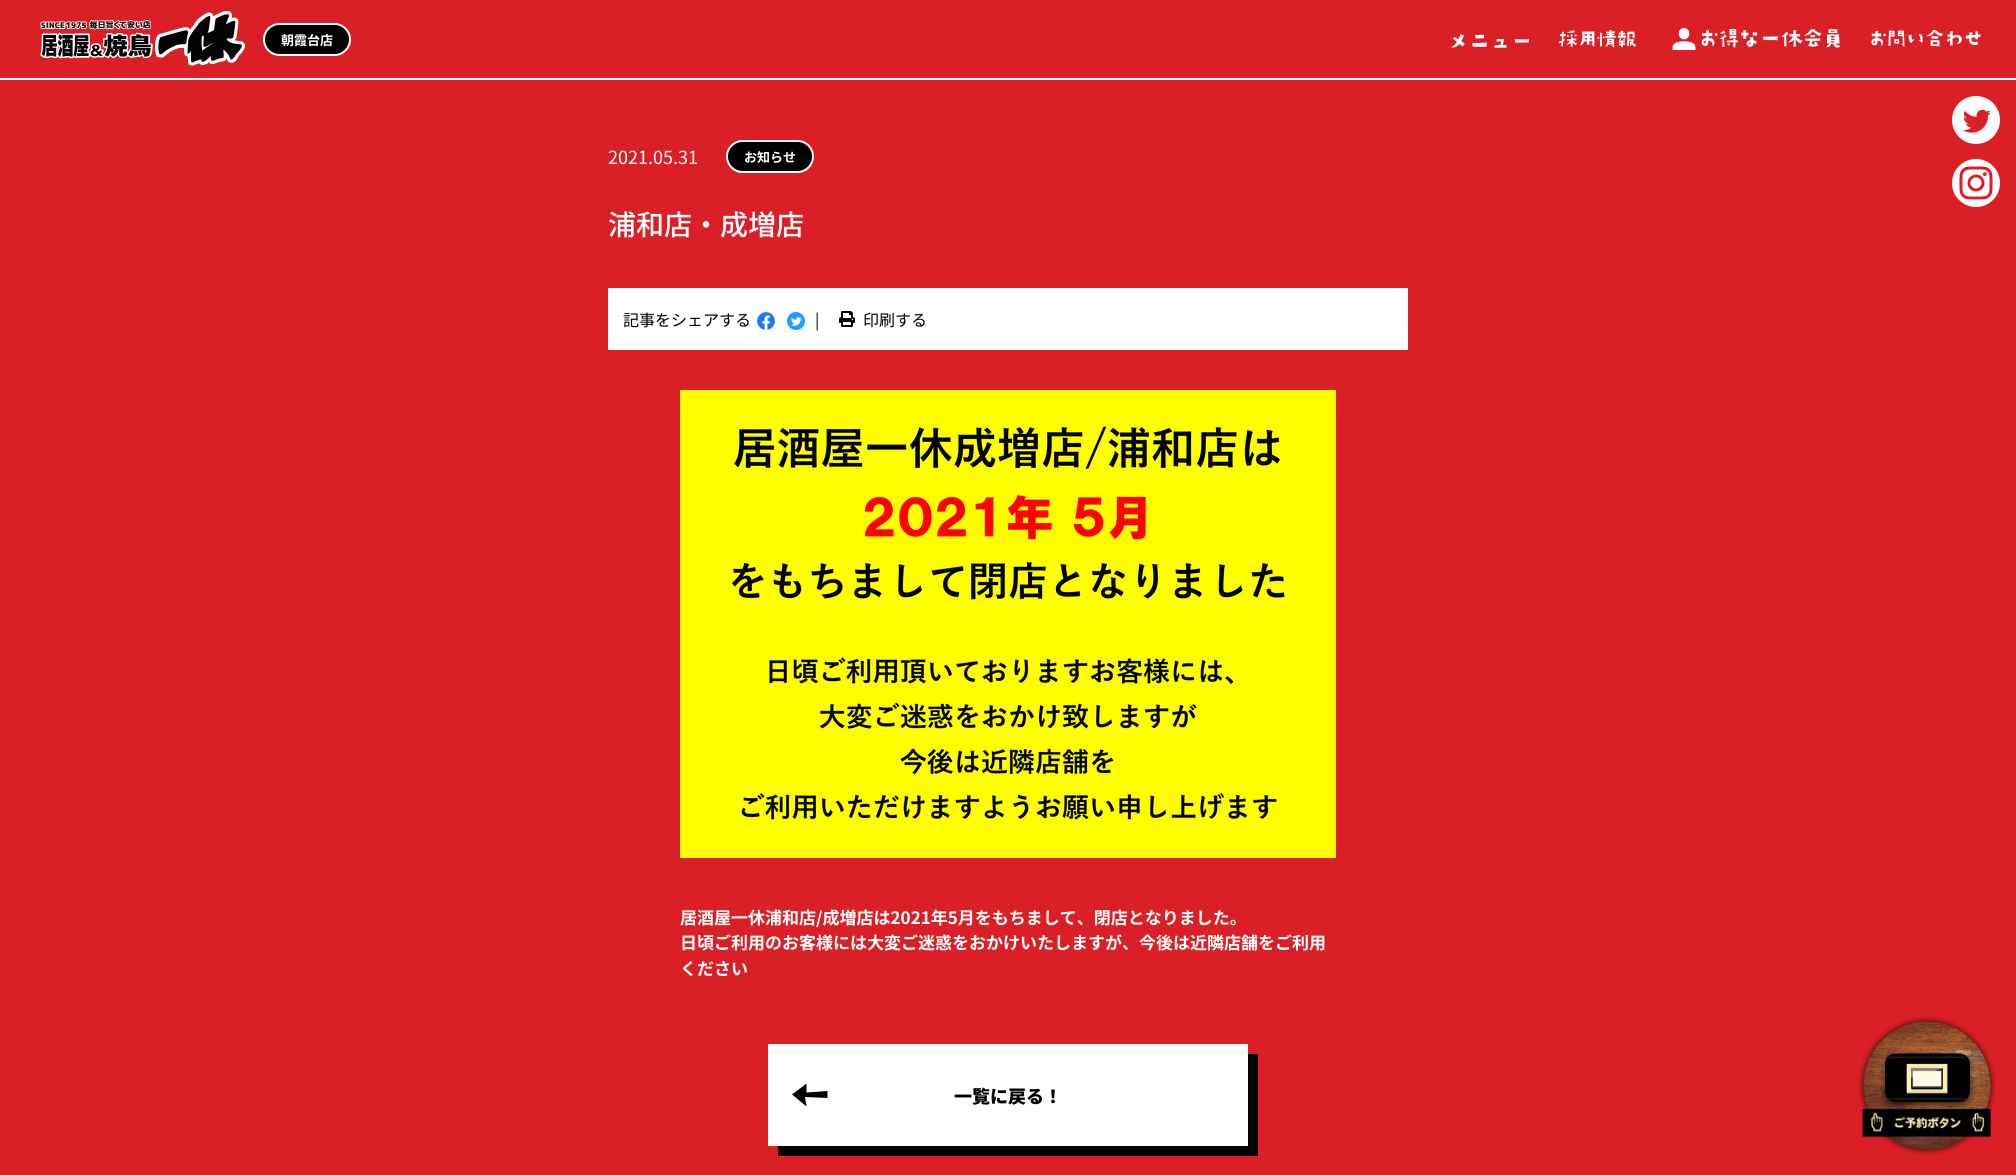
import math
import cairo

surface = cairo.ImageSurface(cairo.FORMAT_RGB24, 2016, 1175)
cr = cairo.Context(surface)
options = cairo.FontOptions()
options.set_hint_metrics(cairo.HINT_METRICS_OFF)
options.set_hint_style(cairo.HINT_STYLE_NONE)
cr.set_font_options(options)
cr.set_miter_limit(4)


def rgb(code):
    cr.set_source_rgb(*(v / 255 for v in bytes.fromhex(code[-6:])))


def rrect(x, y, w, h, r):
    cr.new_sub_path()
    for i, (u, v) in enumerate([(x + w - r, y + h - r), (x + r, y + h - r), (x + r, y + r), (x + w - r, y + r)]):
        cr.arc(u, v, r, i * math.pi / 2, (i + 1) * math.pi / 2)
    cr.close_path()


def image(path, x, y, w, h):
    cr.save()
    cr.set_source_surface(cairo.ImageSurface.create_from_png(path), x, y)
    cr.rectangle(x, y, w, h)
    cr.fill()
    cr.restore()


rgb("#da2026")
cr.paint()
rgb("#ffffff")
cr.rectangle(0, 78, 2016, 2)
cr.fill()
image("img/1.png", 40, 11, 205, 55)
rgb("#000000")
rrect(264, 24, 86, 31, 15.5)
cr.fill_preserve()
rgb("#ffffff")
cr.stroke()
image("img/2.png", 1451, 34, 78, 14)
image("img/3.png", 1559, 30, 78, 18)
image("img/4.png", 1672, 28, 24, 22)
image("img/5.png", 1701, 29, 140, 19)
image("img/6.png", 1871, 30, 110, 17)
rgb("#000000")
rrect(727, 141, 86, 31, 15.5)
cr.fill_preserve()
rgb("#ffffff")
cr.stroke()
cr.rectangle(608, 288, 800, 62)
cr.fill()
image("img/7.png", 757, 312, 18, 18)
image("img/8.png", 787, 312, 18, 18)
image("img/9.png", 839, 311, 16, 16)
image("img/10.png", 680, 390, 656, 468)
rgb("#000000")
cr.new_path()
cr.move_to(778, 1146)
cr.line_to(778, 1156)
cr.line_to(1258, 1156)
cr.line_to(1258, 1054)
cr.line_to(1248, 1054)
cr.line_to(1248, 1146)
cr.close_path()
cr.fill()
rgb("#ffffff")
cr.rectangle(768, 1044, 480, 102)
cr.fill()
rgb("#000000")
cr.new_path()
cr.move_to(827.5, 1098)
cr.line_to(827.5, 1091)
cr.line_to(806.5, 1092.5)
cr.line_to(806.5, 1083.5)
cr.line_to(792, 1094.5)
cr.line_to(806.5, 1106.5)
cr.line_to(805, 1097)
cr.close_path()
cr.fill()
image("img/11.png", 1952, 96, 48, 48)
image("img/12.png", 1952, 159, 48, 48)
image("img/13.png", 1858, 1016, 139, 139)
cr.select_font_face("Noto Sans JP", cairo.FONT_SLANT_NORMAL, cairo.FONT_WEIGHT_BOLD)
cr.set_font_size(13)
rgb("#ffffff")
cr.move_to(281, 45)
cr.show_text("朝霞台店")
cr.select_font_face("Noto Sans JP")
cr.set_font_size(18)
cr.move_to(608, 164)
cr.show_text("2021.05.31")
cr.select_font_face("Noto Sans JP", cairo.FONT_SLANT_NORMAL, cairo.FONT_WEIGHT_BOLD)
cr.set_font_size(13)
cr.move_to(744, 162)
cr.show_text("お知らせ")
cr.select_font_face("Noto Sans JP Medium")
cr.set_font_size(28)
cr.move_to(608, 235)
cr.show_text("浦和店・成増店")
cr.select_font_face("Noto Sans JP")
cr.set_font_size(16)
rgb("#000000")
for x, y, s in [
    (623, 326, "記事をシェアする"),
    (815, 326, "|"),
    (863, 326, "印刷する"),
]:
    cr.move_to(x, y)
    cr.show_text(s)
cr.select_font_face("Noto Sans JP", cairo.FONT_SLANT_NORMAL, cairo.FONT_WEIGHT_BOLD)
cr.set_font_size(17)
rgb("#ffffff")
for x, y, s in [
    (680, 924, "居酒屋一休浦和店/成増店は2021年5月をもちまして、閉店となりました。"),
    (680, 949, "日頃ご利用のお客様には大変ご迷惑をおかけいたしますが、今後は近隣店舗をご利用"),
    (680, 975, "ください"),
]:
    cr.move_to(x, y)
    cr.show_text(s)
cr.select_font_face("Noto Sans JP Black")
cr.set_font_size(18)
rgb("#000000")
cr.move_to(954, 1103)
cr.show_text("一覧に戻る！")
surface.write_to_png("page.png")
